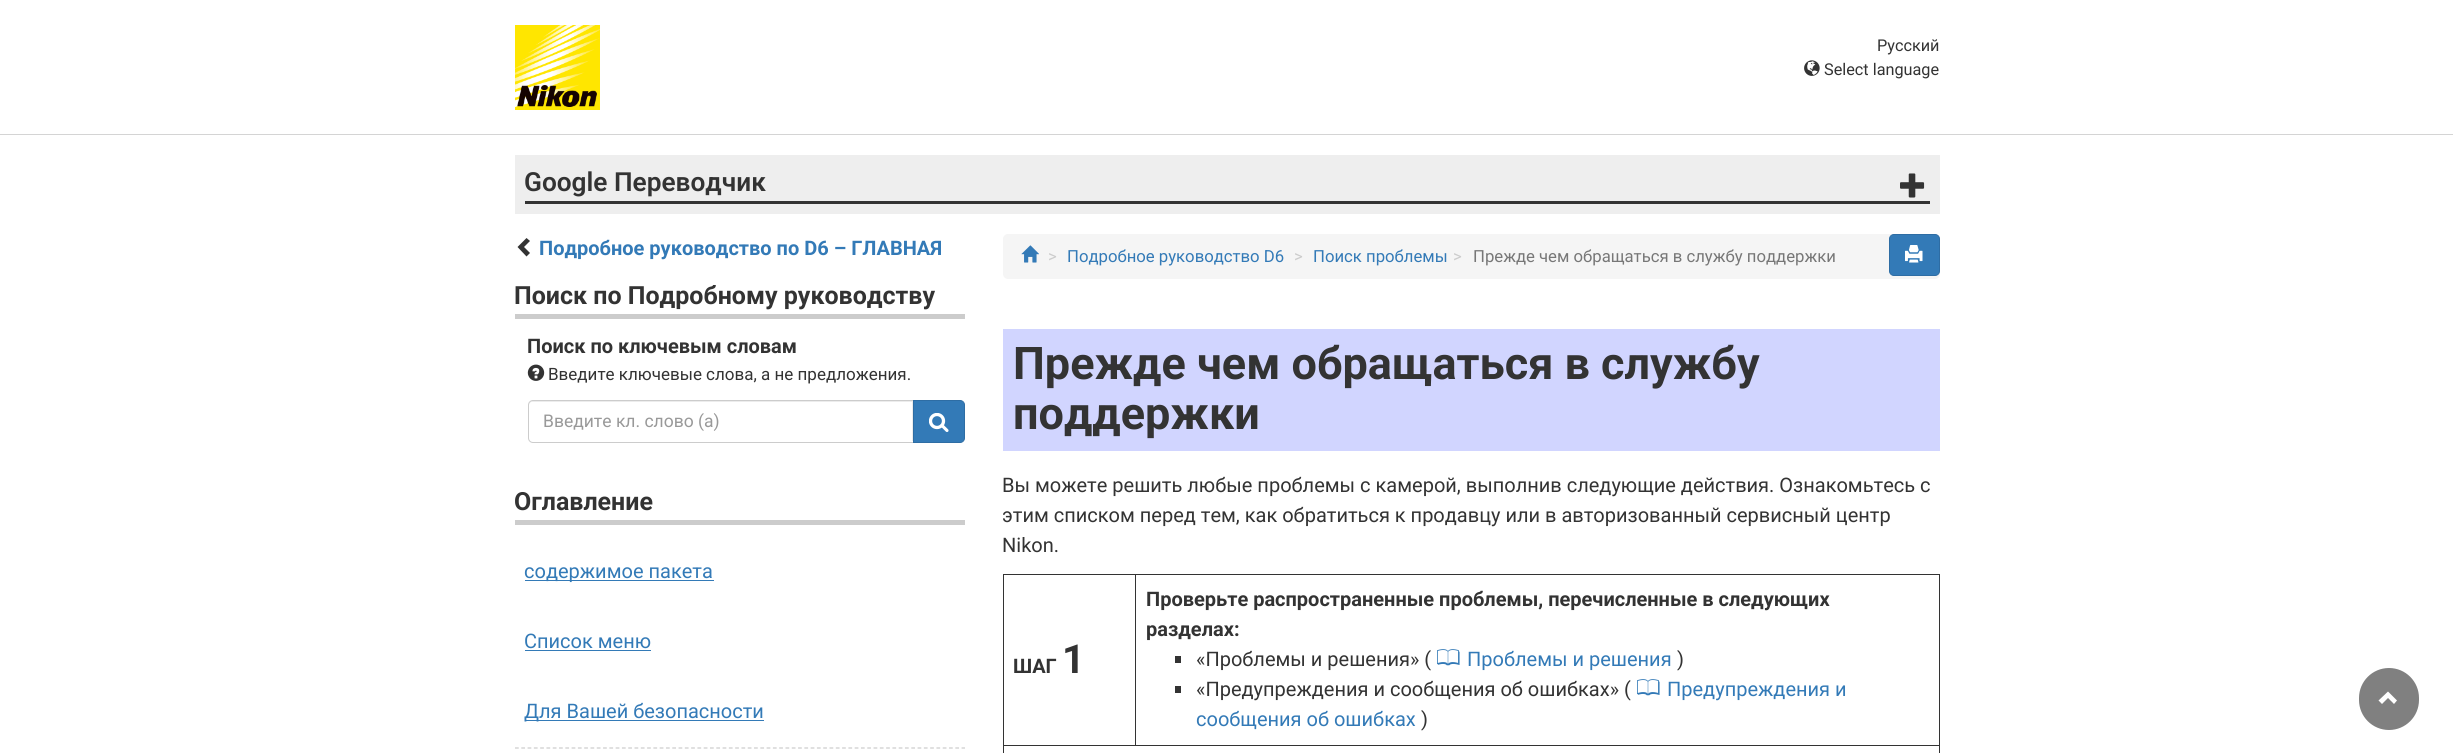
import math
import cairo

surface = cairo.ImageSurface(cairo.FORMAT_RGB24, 2453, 753)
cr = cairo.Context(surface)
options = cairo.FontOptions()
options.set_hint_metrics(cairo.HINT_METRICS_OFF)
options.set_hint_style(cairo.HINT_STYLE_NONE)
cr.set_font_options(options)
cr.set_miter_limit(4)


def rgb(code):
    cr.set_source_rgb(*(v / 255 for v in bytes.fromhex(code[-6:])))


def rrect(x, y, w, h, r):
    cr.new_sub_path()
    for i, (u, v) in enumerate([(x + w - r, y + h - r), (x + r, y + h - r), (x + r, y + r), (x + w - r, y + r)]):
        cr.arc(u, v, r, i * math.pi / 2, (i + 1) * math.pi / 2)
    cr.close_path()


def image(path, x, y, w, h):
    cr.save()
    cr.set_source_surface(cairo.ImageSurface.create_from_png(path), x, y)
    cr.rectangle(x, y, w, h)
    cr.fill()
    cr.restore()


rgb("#ffffff")
cr.paint()
rgb("#d4d4d4")
cr.rectangle(0, 134, 2453, 1)
cr.fill()
image("img/1.png", 515, 25, 85, 85)
image("img/2.png", 1804, 60, 16, 16)
rgb("#eeeeee")
cr.rectangle(515, 155, 1425, 59)
cr.fill()
rgb("#333333")
cr.rectangle(525, 201, 1405, 3)
cr.fill()
image("img/3.png", 1900, 173, 25, 25)
cr.new_path()
cr.move_to(530, 241)
cr.line_to(524, 247)
cr.line_to(530, 253)
cr.line_to(526.5, 256.5)
cr.line_to(517.5, 247)
cr.line_to(526.5, 238)
cr.close_path()
cr.fill()
rgb("#cccccc")
cr.rectangle(515, 314, 450, 5)
cr.fill()
image("img/4.png", 527, 364, 18, 17)
rgb("#ececec")
cr.new_path()
cr.move_to(532, 402)
cr.line_to(912, 402)
cr.line_to(912, 441)
cr.line_to(913, 441)
cr.line_to(913, 401)
cr.line_to(533, 401)
cr.curve_to(530, 401, 529, 403, 529, 406)
cr.curve_to(529, 404, 530, 402, 532, 402)
cr.close_path()
cr.fill()
cr.new_path()
cr.move_to(533, 400.5)
cr.line_to(913.5, 400.5)
cr.line_to(913.5, 442.5)
cr.line_to(533, 442.5)
cr.curve_to(530.5, 442.5, 528.5, 440.5, 528.5, 438)
cr.line_to(528.5, 405)
cr.curve_to(528.5, 402.5, 530.5, 400.5, 533, 400.5)
cr.close_path()
rgb("#cccccc")
cr.set_line_width(1)
cr.stroke()
rgb("#337ab7")
cr.new_path()
cr.move_to(913.5, 400.5)
cr.line_to(960, 400.5)
cr.curve_to(962.5, 400.5, 964.5, 402.5, 964.5, 405)
cr.line_to(964.5, 438)
cr.curve_to(964.5, 440.5, 962.5, 442.5, 960, 442.5)
cr.line_to(913.5, 442.5)
cr.close_path()
cr.fill_preserve()
rgb("#2e6da4")
cr.stroke()
cr.save()
cr.rectangle(929, 413, 20, 20)
cr.clip()
cr.arc(937, 421, 6.5, 0, 2 * math.pi)
rgb("#ffffff")
cr.set_line_width(3.3)
cr.stroke()
cr.restore()
cr.new_path()
cr.move_to(942, 425.5)
cr.line_to(947, 430.5)
rgb("#ffffff")
cr.set_line_width(3.1)
cr.set_line_cap(cairo.LINE_CAP_ROUND)
cr.stroke()
for x, y, w, h, color in [
    (515, 520, 450, 5, "#cccccc"),
    (525, 580, 189, 1, "#337ab7"),
    (525, 650, 126, 1, "#337ab7"),
    (525, 720, 239, 1, "#337ab7"),
]:
    rgb(color)
    cr.rectangle(x, y, w, h)
    cr.fill()
cr.new_path()
cr.move_to(515, 748)
cr.line_to(965, 748)
rgb("#cccccc")
cr.set_line_width(1.2)
cr.set_line_cap(cairo.LINE_CAP_BUTT)
cr.set_dash([3.75, 2.54])
cr.stroke()
rgb("#f5f5f5")
rrect(1003, 234, 937, 45, 5)
cr.fill()
image("img/5.png", 1021, 245, 18, 18)
rgb("#337ab7")
rrect(1889.5, 234.5, 50, 41, 4.5)
cr.fill_preserve()
rgb("#2e6da4")
cr.set_line_width(1)
cr.set_dash([])
cr.stroke()
image("img/6.png", 1905, 245, 18, 18)
for x, y, w, h, color in [
    (1003, 329, 937, 122, "#d1d5ff"),
    (1003, 574, 937, 1, "#333333"),
    (1003, 574, 1, 179, "#333333"),
    (1939, 574, 1, 179, "#333333"),
    (1135, 745, 805, 1, "#333333"),
    (1135, 574, 1, 172, "#333333"),
    (1003, 745, 133, 1, "#333333"),
    (1175, 656, 6, 7, "#333333"),
    (1175, 686, 6, 7, "#333333"),
]:
    rgb(color)
    cr.rectangle(x, y, w, h)
    cr.fill()
rgb("#808080")
rrect(2360.5, 669.5, 57, 59, 28.5)
cr.fill_preserve()
cr.set_line_width(3)
cr.stroke()
rgb("#ffffff")
cr.new_path()
cr.move_to(2397, 700.5)
cr.line_to(2394, 704)
cr.line_to(2388, 698)
cr.line_to(2382, 704)
cr.line_to(2378.5, 700.5)
cr.line_to(2388, 691.5)
cr.close_path()
cr.fill()
cr.select_font_face("Roboto")
cr.set_font_size(16.25)
rgb("#333333")
cr.move_to(1877, 51)
cr.show_text("Русский")
cr.move_to(1824, 75)
cr.show_text("Select language")
cr.select_font_face("Roboto SemiBold")
cr.set_font_size(26.25)
cr.move_to(524, 191)
cr.show_text("Google Переводчик")
cr.select_font_face("Roboto", cairo.FONT_SLANT_NORMAL, cairo.FONT_WEIGHT_BOLD)
cr.set_font_size(20)
rgb("#337ab7")
cr.move_to(539, 255)
cr.show_text("Подробное руководство по D6 – ГЛАВНАЯ")
cr.set_font_size(25)
rgb("#333333")
cr.move_to(514, 304)
cr.show_text("Поиск по Подробному руководству")
cr.set_font_size(20)
cr.move_to(527, 353)
cr.show_text("Поиск по ключевым словам")
cr.select_font_face("Roboto")
cr.set_font_size(17)
cr.move_to(548, 380)
cr.show_text("Введите ключевые слова, а не предложения.")
cr.set_font_size(17.5)
rgb("#999999")
cr.move_to(543, 427)
cr.show_text("Введите кл. слово (а)")
cr.select_font_face("Roboto", cairo.FONT_SLANT_NORMAL, cairo.FONT_WEIGHT_BOLD)
cr.set_font_size(25)
rgb("#333333")
cr.move_to(514, 510)
cr.show_text("Оглавление")
cr.select_font_face("Roboto")
cr.set_font_size(20)
rgb("#337ab7")
for x, y, s in [
    (524, 578, "содержимое пакета"),
    (524, 648, "Список меню"),
    (524, 718, "Для Вашей безопасности"),
]:
    cr.move_to(x, y)
    cr.show_text(s)
cr.set_font_size(16.7)
rgb("#cccccc")
cr.move_to(1048, 262)
cr.show_text(">")
rgb("#337ab7")
cr.move_to(1067, 262)
cr.show_text("Подробное руководство D6")
rgb("#cccccc")
cr.move_to(1294, 262)
cr.show_text(">")
rgb("#337ab7")
cr.move_to(1313, 262)
cr.show_text("Поиск проблемы")
rgb("#cccccc")
cr.move_to(1453, 262)
cr.show_text(">")
rgb("#777777")
cr.move_to(1473, 262)
cr.show_text("Прежде чем обращаться в службу поддержки")
cr.select_font_face("Roboto", cairo.FONT_SLANT_NORMAL, cairo.FONT_WEIGHT_BOLD)
cr.set_font_size(45)
rgb("#333333")
cr.move_to(1013, 379)
cr.show_text("Прежде чем обращаться в службу")
cr.move_to(1013, 429)
cr.show_text("поддержки")
cr.select_font_face("Roboto")
cr.set_font_size(20)
for x, y, s in [
    (1002, 492, "Вы можете решить любые проблемы с камерой, выполнив следующие действия. Ознакомьтесь с"),
    (1002, 522, "этим списком перед тем, как обратиться к продавцу или в авторизованный сервисный центр"),
    (1002, 552, "Nikon."),
]:
    cr.move_to(x, y)
    cr.show_text(s)
cr.select_font_face("Roboto", cairo.FONT_SLANT_NORMAL, cairo.FONT_WEIGHT_BOLD)
cr.move_to(1013, 673)
cr.show_text("ШАГ")
cr.set_font_size(40)
cr.move_to(1062, 673)
cr.show_text("1")
cr.set_font_size(20)
cr.move_to(1146, 606)
cr.show_text("Проверьте распространенные проблемы, перечисленные в следующих")
cr.move_to(1146, 636)
cr.show_text("разделах:")
cr.select_font_face("Roboto")
cr.move_to(1196, 666)
cr.show_text("«Проблемы и решения» (")
cr.select_font_face("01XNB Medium")
cr.set_font_size(26)
rgb("#337ab7")
cr.move_to(1436, 666)
cr.show_text("0")
cr.select_font_face("Roboto")
cr.set_font_size(20)
cr.move_to(1467, 666)
cr.show_text("Проблемы и решения")
rgb("#333333")
cr.move_to(1677, 666)
cr.show_text(")")
cr.move_to(1196, 696)
cr.show_text("«Предупреждения и сообщения об ошибках» (")
cr.select_font_face("01XNB Medium")
cr.set_font_size(26)
rgb("#337ab7")
cr.move_to(1636, 696)
cr.show_text("0")
cr.select_font_face("Roboto")
cr.set_font_size(20)
cr.move_to(1667, 696)
cr.show_text("Предупреждения и")
cr.move_to(1196, 726)
cr.show_text("сообщения об ошибках")
rgb("#333333")
cr.move_to(1421, 726)
cr.show_text(")")
surface.write_to_png("page.png")
